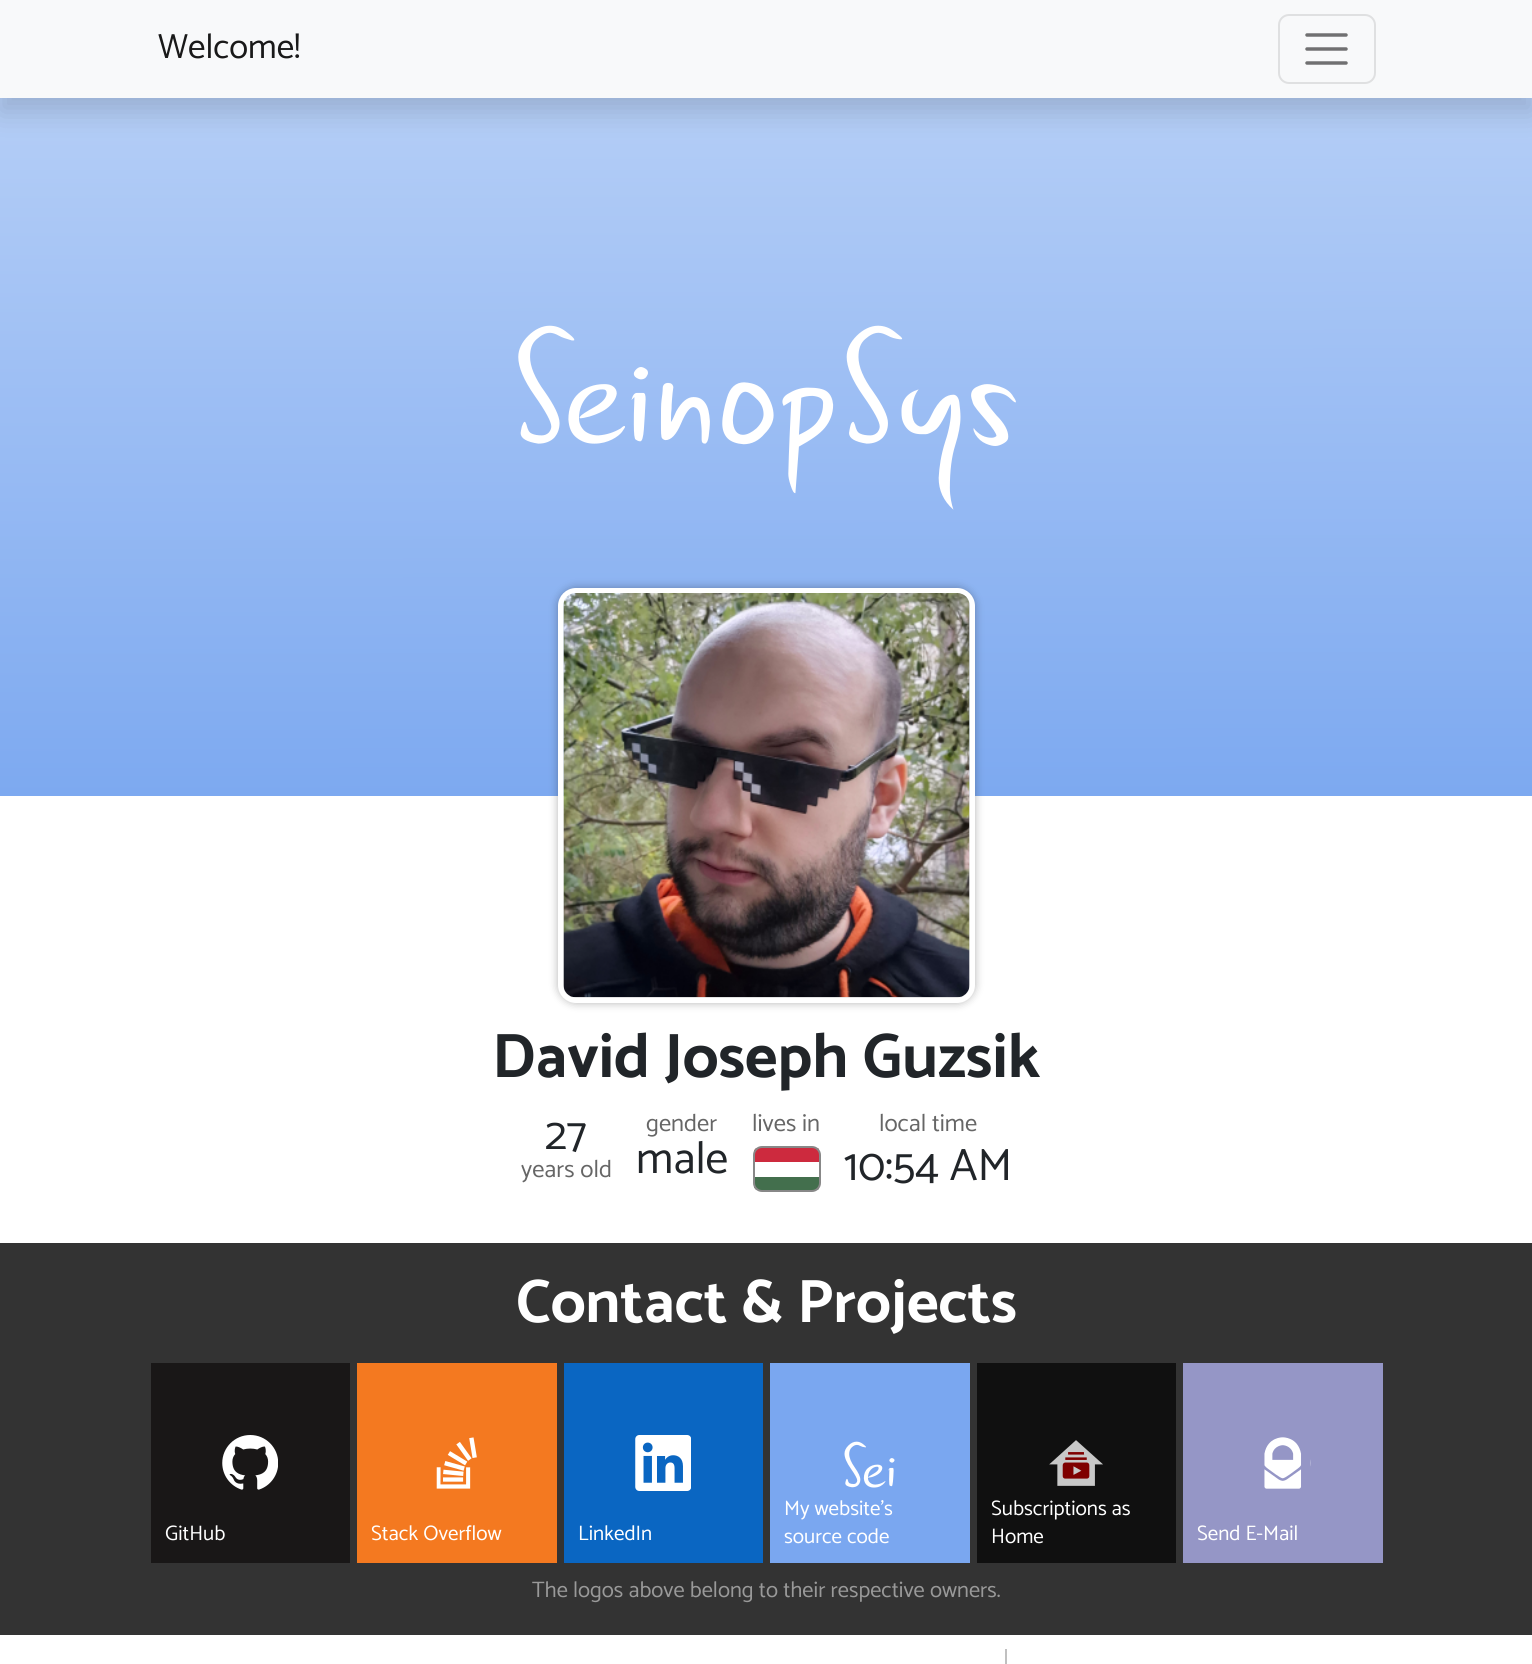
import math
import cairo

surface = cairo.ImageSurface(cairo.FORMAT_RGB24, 1532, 1664)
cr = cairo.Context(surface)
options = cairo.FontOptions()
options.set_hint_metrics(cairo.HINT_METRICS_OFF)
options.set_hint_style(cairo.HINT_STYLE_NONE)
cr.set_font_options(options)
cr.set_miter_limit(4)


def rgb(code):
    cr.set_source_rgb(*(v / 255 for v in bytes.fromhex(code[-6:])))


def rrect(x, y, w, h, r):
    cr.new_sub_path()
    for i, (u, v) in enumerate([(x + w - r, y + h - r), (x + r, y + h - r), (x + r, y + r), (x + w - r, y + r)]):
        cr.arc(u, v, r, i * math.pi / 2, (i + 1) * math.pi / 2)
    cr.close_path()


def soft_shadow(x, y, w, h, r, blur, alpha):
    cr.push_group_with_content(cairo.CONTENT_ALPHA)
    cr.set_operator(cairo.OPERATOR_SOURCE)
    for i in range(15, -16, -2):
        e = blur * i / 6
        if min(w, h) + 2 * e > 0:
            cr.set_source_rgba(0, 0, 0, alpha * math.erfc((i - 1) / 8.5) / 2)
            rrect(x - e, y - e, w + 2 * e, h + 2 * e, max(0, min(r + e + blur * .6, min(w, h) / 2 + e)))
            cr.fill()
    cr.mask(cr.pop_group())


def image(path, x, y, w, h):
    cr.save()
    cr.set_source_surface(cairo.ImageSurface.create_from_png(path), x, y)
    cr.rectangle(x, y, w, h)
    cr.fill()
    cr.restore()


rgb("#ffffff")
cr.paint()
gradient = cairo.LinearGradient(766, 0, 767, 833)
gradient.add_color_stop_rgba(0, 0.737, 0.827, 0.969, 1)
gradient.add_color_stop_rgba(1, 0.478, 0.655, 0.941, 1)
cr.set_source(gradient)
cr.rectangle(0, 98, 1532, 698)
cr.fill()
rgb("#000000")
soft_shadow(0, 14, 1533, 98, 0, 14, 0.15)
rgb("#f8f9fa")
cr.rectangle(0, 0, 1532, 98)
cr.fill()
rrect(1279, 15, 96, 68, 10)
rgb("#dfe0e1")
cr.stroke()
cr.new_path()
cr.move_to(1307, 35)
cr.line_to(1346, 35)
cr.move_to(1307, 49)
cr.line_to(1346, 49)
cr.move_to(1307, 63)
cr.line_to(1346, 63)
rgb("#707071")
cr.set_line_width(3.5)
cr.set_line_cap(cairo.LINE_CAP_ROUND)
cr.stroke()
image("img/1.png", 518, 325, 498, 185)
rgb("#000000")
soft_shadow(558, 588, 417, 415, 18, 4.5, 0.3)
cr.set_source_rgba(1, 1, 1, 0.8)
rrect(560.5, 590.5, 412, 410, 15.5)
cr.fill_preserve()
rgb("#ffffff")
cr.set_line_width(5)
cr.set_line_cap(cairo.LINE_CAP_BUTT)
cr.stroke()
image("img/2.png", 563, 593, 407, 405)
cr.save()
rrect(753, 1146, 68, 46, 9)
cr.clip()
for x, y, w, h, color in [
    (754, 1148, 65, 42, "#436f4d"),
    (754, 1148, 65, 29, "#ffffff"),
    (754, 1148, 65, 14, "#cd2a3e"),
]:
    rgb(color)
    cr.rectangle(x, y, w, h)
    cr.fill()
cr.restore()
rrect(754, 1147, 66, 44, 8)
rgb("#888888")
cr.set_line_width(2)
cr.stroke()
rgb("#333333")
cr.rectangle(0, 1243, 1532, 392)
cr.fill()
rgb("#191717")
cr.rectangle(151, 1363, 199, 200)
cr.fill()
image("img/3.png", 222, 1435, 56, 55)
rgb("#f47920")
cr.rectangle(357, 1363, 200, 200)
cr.fill()
image("img/4.png", 436, 1437, 41, 52)
rgb("#0a66c2")
cr.rectangle(564, 1363, 199, 200)
cr.fill()
image("img/5.png", 635, 1435, 56, 56)
rgb("#7aa7f0")
cr.rectangle(770, 1363, 200, 200)
cr.fill()
image("img/6.png", 844, 1441, 51, 47)
rgb("#101010")
cr.rectangle(977, 1363, 199, 200)
cr.fill()
image("img/7.png", 1049, 1440, 54, 46)
rgb("#9596c6")
cr.rectangle(1183, 1363, 200, 200)
cr.fill()
image("img/8.png", 1264, 1437, 47, 52)
rgb("#c0c0c0")
cr.rectangle(1005, 1649, 2, 15)
cr.fill()
cr.select_font_face("Catamaran")
cr.set_font_size(35)
rgb("#191919")
cr.move_to(158, 58)
cr.show_text("Welcome!")
cr.select_font_face("Catamaran", cairo.FONT_SLANT_NORMAL, cairo.FONT_WEIGHT_BOLD)
cr.set_font_size(63)
rgb("#212529")
cr.move_to(492, 1077)
cr.show_text("David Joseph Guzsik")
cr.select_font_face("Catamaran")
cr.set_font_size(45.5)
cr.move_to(545, 1149)
cr.show_text("27")
cr.set_font_size(24.5)
rgb("#666666")
cr.move_to(521, 1177)
cr.show_text("years old")
cr.move_to(646, 1131)
cr.show_text("gender")
cr.set_font_size(45.5)
rgb("#212529")
cr.move_to(636, 1173)
cr.show_text("male")
cr.set_font_size(24.5)
rgb("#666666")
cr.move_to(752, 1131)
cr.show_text("lives in")
cr.move_to(879, 1131)
cr.show_text("local time")
cr.set_font_size(45.5)
rgb("#212529")
cr.move_to(844, 1180)
cr.show_text("10:54 AM")
cr.select_font_face("Catamaran", cairo.FONT_SLANT_NORMAL, cairo.FONT_WEIGHT_BOLD)
cr.set_font_size(61.5)
rgb("#ffffff")
cr.move_to(516, 1322)
cr.show_text("Contact & Projects")
cr.select_font_face("Catamaran")
cr.set_font_size(21)
for x, y, s in [
    (165, 1540, "GitHub"),
    (371, 1540, "Stack Overflow"),
    (578, 1540, "LinkedIn"),
    (784, 1515, "My website's"),
    (784, 1543, "source code"),
    (991, 1515, "Subscriptions as"),
    (991, 1543, "Home"),
    (1197, 1540, "Send E-Mail"),
]:
    cr.move_to(x, y)
    cr.show_text(s)
cr.set_font_size(22.4)
rgb("#999999")
cr.move_to(532, 1597)
cr.show_text("The logos above belong to their respective owners.")
surface.write_to_png("page.png")
